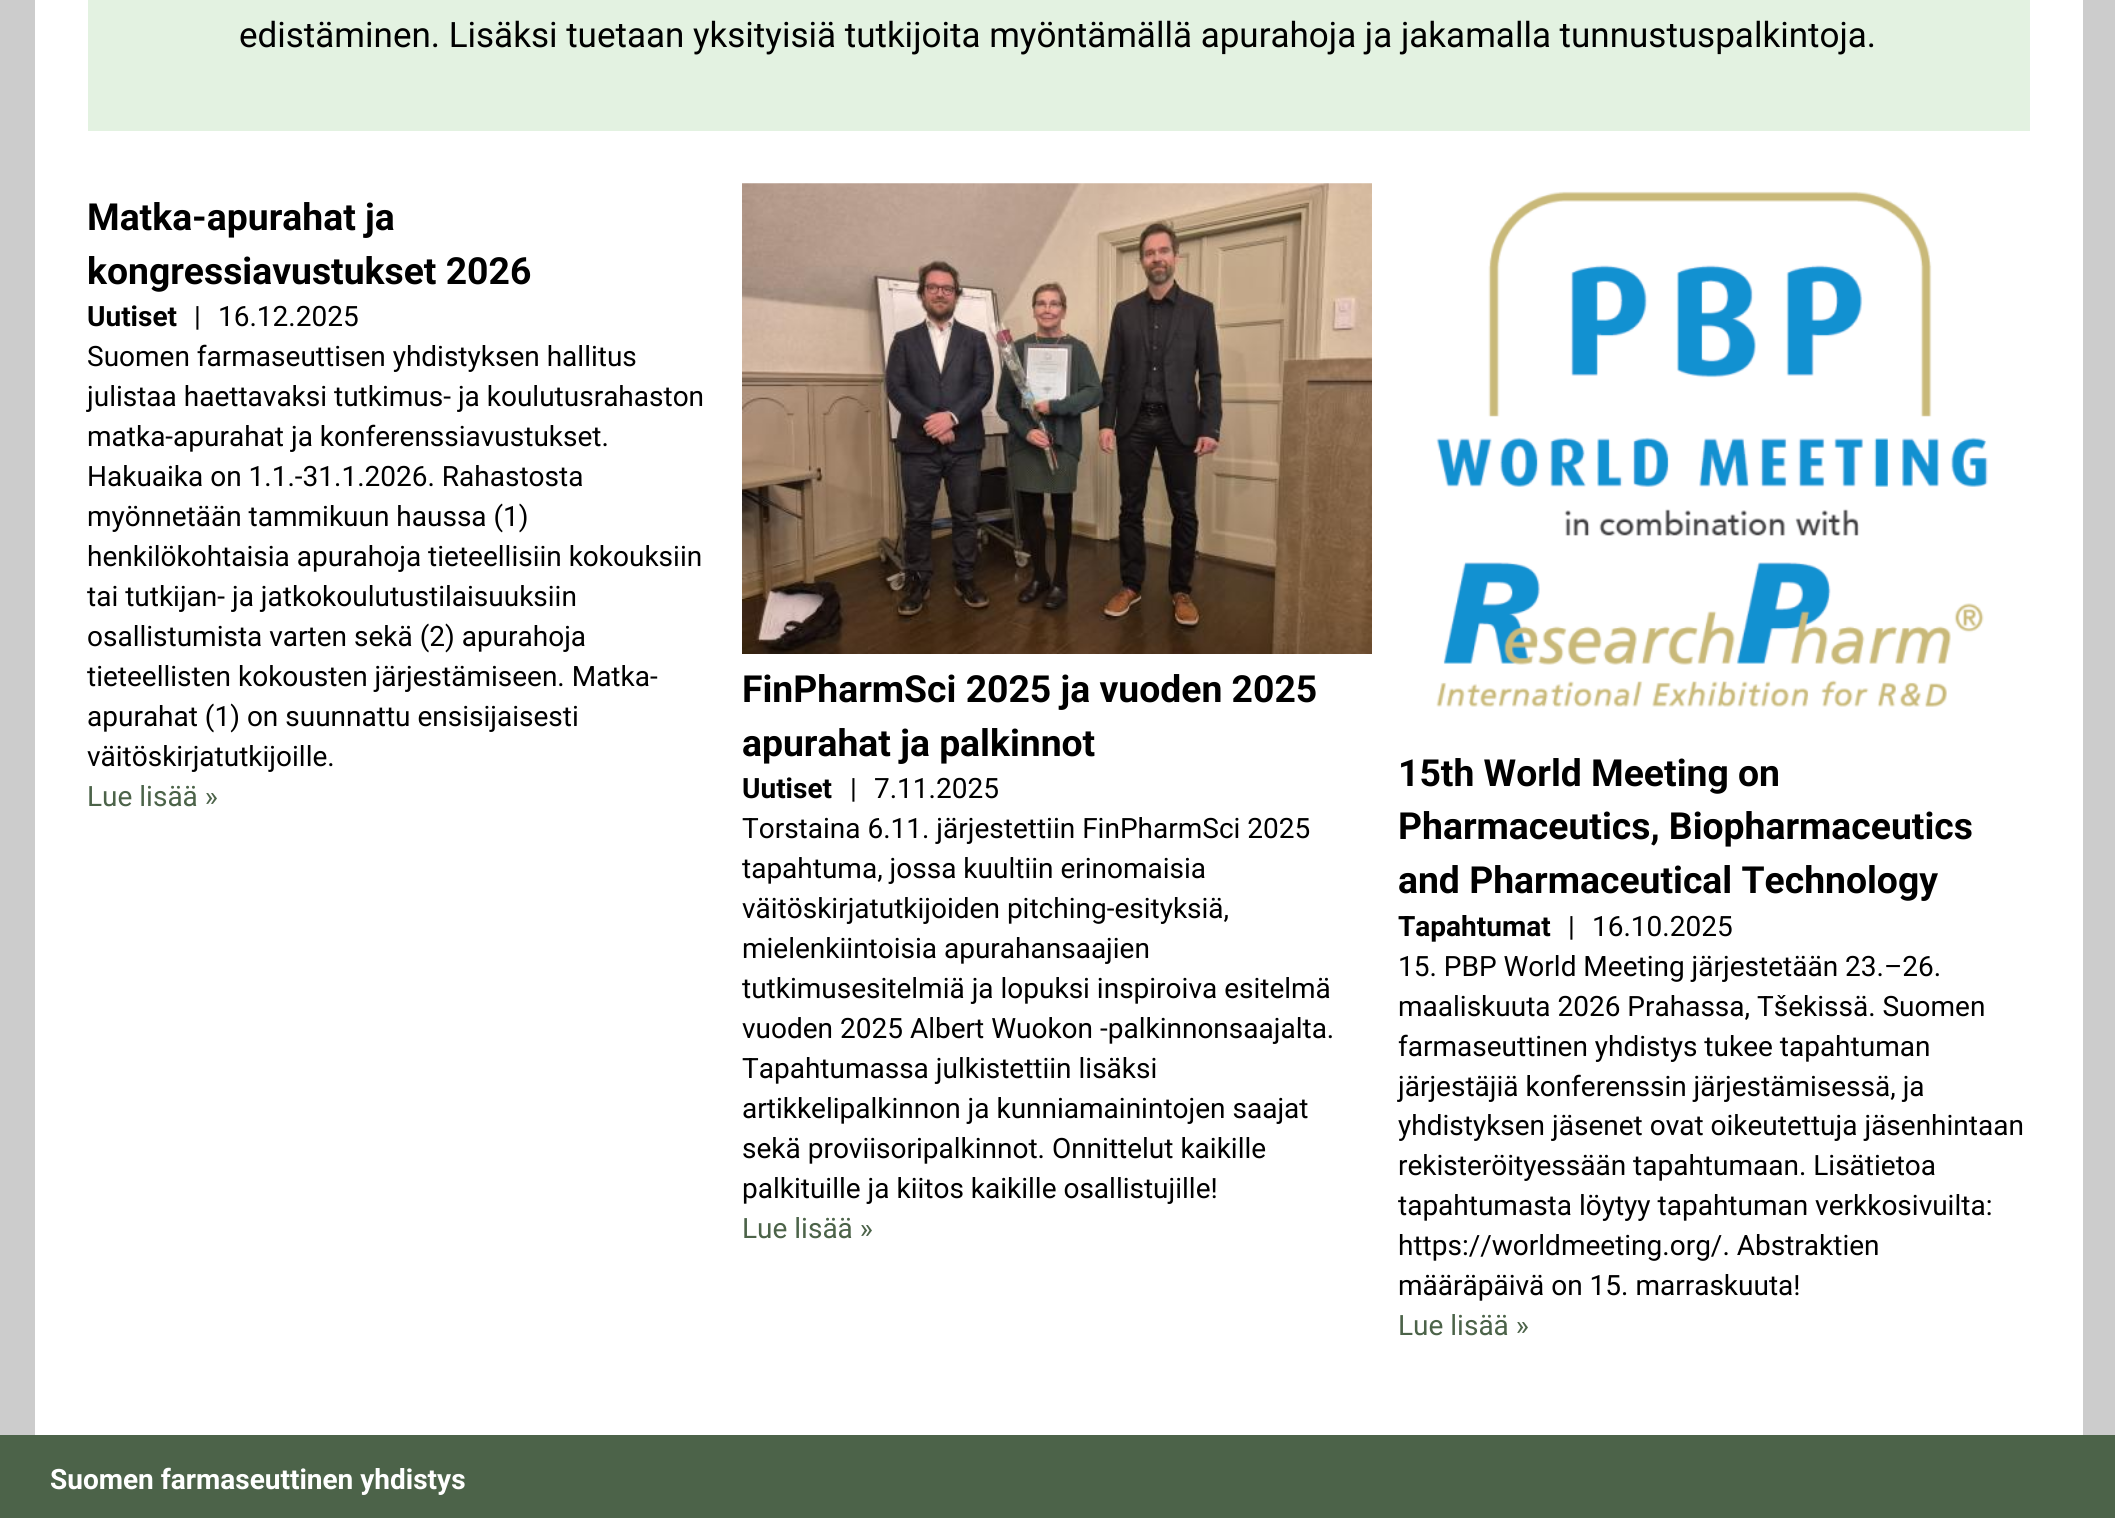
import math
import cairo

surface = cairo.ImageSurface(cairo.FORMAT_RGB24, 2115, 1518)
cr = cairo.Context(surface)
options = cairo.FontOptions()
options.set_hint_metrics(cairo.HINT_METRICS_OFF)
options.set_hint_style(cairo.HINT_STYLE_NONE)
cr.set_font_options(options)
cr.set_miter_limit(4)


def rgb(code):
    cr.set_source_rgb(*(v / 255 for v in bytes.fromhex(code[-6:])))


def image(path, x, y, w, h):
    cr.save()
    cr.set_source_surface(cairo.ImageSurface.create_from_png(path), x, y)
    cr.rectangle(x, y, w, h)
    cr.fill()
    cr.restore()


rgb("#cccccc")
cr.paint()
rgb("#ffffff")
cr.rectangle(35, 0, 2048, 1435)
cr.fill()
rgb("#e3f2e1")
cr.rectangle(88, 0, 1942, 131)
cr.fill()
image("img/1.png", 742, 183, 630, 471)
image("img/2.png", 1436, 191, 552, 516)
rgb("#4c6349")
cr.rectangle(0, 1435, 2115, 83)
cr.fill()
cr.select_font_face("Roboto")
cr.set_font_size(35)
rgb("#000000")
cr.move_to(239, 47)
cr.show_text("edistäminen. Lisäksi tuetaan yksityisiä tutkijoita myöntämällä apurahoja ja jakamalla tunnustuspalkintoja.")
cr.select_font_face("Roboto", cairo.FONT_SLANT_NORMAL, cairo.FONT_WEIGHT_BOLD)
cr.set_font_size(37.3)
cr.move_to(87, 230)
cr.show_text("Matka-apurahat ja")
cr.move_to(87, 284)
cr.show_text("kongressiavustukset 2026")
cr.set_font_size(28)
cr.move_to(87, 326)
cr.show_text("Uutiset")
cr.select_font_face("Roboto")
for x, y, s in [
    (194, 326, "|"),
    (218, 326, "16.12.2025"),
    (87, 366, "Suomen farmaseuttisen yhdistyksen hallitus"),
    (87, 406, "julistaa haettavaksi tutkimus- ja koulutusrahaston"),
    (87, 446, "matka-apurahat ja konferenssiavustukset."),
    (87, 486, "Hakuaika on 1.1.-31.1.2026. Rahastosta"),
    (87, 526, "myönnetään tammikuun haussa (1)"),
    (87, 566, "henkilökohtaisia apurahoja tieteellisiin kokouksiin"),
    (87, 606, "tai tutkijan- ja jatkokoulutustilaisuuksiin"),
    (87, 646, "osallistumista varten sekä (2) apurahoja"),
    (87, 686, "tieteellisten kokousten järjestämiseen. Matka-"),
    (87, 726, "apurahat (1) on suunnattu ensisijaisesti"),
    (87, 766, "väitöskirjatutkijoille."),
]:
    cr.move_to(x, y)
    cr.show_text(s)
rgb("#4c6349")
cr.move_to(87, 806)
cr.show_text("Lue lisää »")
cr.select_font_face("Roboto", cairo.FONT_SLANT_NORMAL, cairo.FONT_WEIGHT_BOLD)
cr.set_font_size(37.3)
rgb("#000000")
cr.move_to(742, 702)
cr.show_text("FinPharmSci 2025 ja vuoden 2025")
cr.move_to(742, 756)
cr.show_text("apurahat ja palkinnot")
cr.set_font_size(28)
cr.move_to(742, 798)
cr.show_text("Uutiset")
cr.select_font_face("Roboto")
for x, y, s in [
    (850, 798, "|"),
    (874, 798, "7.11.2025"),
    (742, 838, "Torstaina 6.11. järjestettiin FinPharmSci 2025"),
    (742, 878, "tapahtuma, jossa kuultiin erinomaisia"),
    (742, 918, "väitöskirjatutkijoiden pitching-esityksiä,"),
    (742, 958, "mielenkiintoisia apurahansaajien"),
    (742, 998, "tutkimusesitelmiä ja lopuksi inspiroiva esitelmä"),
    (742, 1038, "vuoden 2025 Albert Wuokon -palkinnonsaajalta."),
    (742, 1078, "Tapahtumassa julkistettiin lisäksi"),
    (742, 1118, "artikkelipalkinnon ja kunniamainintojen saajat"),
    (742, 1158, "sekä proviisoripalkinnot. Onnittelut kaikille"),
    (742, 1198, "palkituille ja kiitos kaikille osallistujille!"),
]:
    cr.move_to(x, y)
    cr.show_text(s)
rgb("#4c6349")
cr.move_to(742, 1238)
cr.show_text("Lue lisää »")
cr.select_font_face("Roboto", cairo.FONT_SLANT_NORMAL, cairo.FONT_WEIGHT_BOLD)
cr.set_font_size(37.3)
rgb("#000000")
for x, y, s in [
    (1398, 786, "15th World Meeting on"),
    (1398, 839, "Pharmaceutics, Biopharmaceutics"),
    (1398, 893, "and Pharmaceutical Technology"),
]:
    cr.move_to(x, y)
    cr.show_text(s)
cr.set_font_size(28)
cr.move_to(1398, 936)
cr.show_text("Tapahtumat")
cr.select_font_face("Roboto")
for x, y, s in [
    (1568, 936, "|"),
    (1592, 936, "16.10.2025"),
    (1398, 976, "15. PBP World Meeting järjestetään 23.–26."),
    (1398, 1016, "maaliskuuta 2026 Prahassa, Tšekissä. Suomen"),
    (1398, 1056, "farmaseuttinen yhdistys tukee tapahtuman"),
    (1398, 1096, "järjestäjiä konferenssin järjestämisessä, ja"),
    (1398, 1135, "yhdistyksen jäsenet ovat oikeutettuja jäsenhintaan"),
    (1398, 1175, "rekisteröityessään tapahtumaan. Lisätietoa"),
    (1398, 1215, "tapahtumasta löytyy tapahtuman verkkosivuilta:"),
    (1398, 1255, "https://worldmeeting.org/. Abstraktien"),
    (1398, 1295, "määräpäivä on 15. marraskuuta!"),
]:
    cr.move_to(x, y)
    cr.show_text(s)
rgb("#4c6349")
cr.move_to(1398, 1335)
cr.show_text("Lue lisää »")
cr.select_font_face("Roboto", cairo.FONT_SLANT_NORMAL, cairo.FONT_WEIGHT_BOLD)
rgb("#ffffff")
cr.move_to(50, 1489)
cr.show_text("Suomen farmaseuttinen yhdistys")
surface.write_to_png("page.png")
